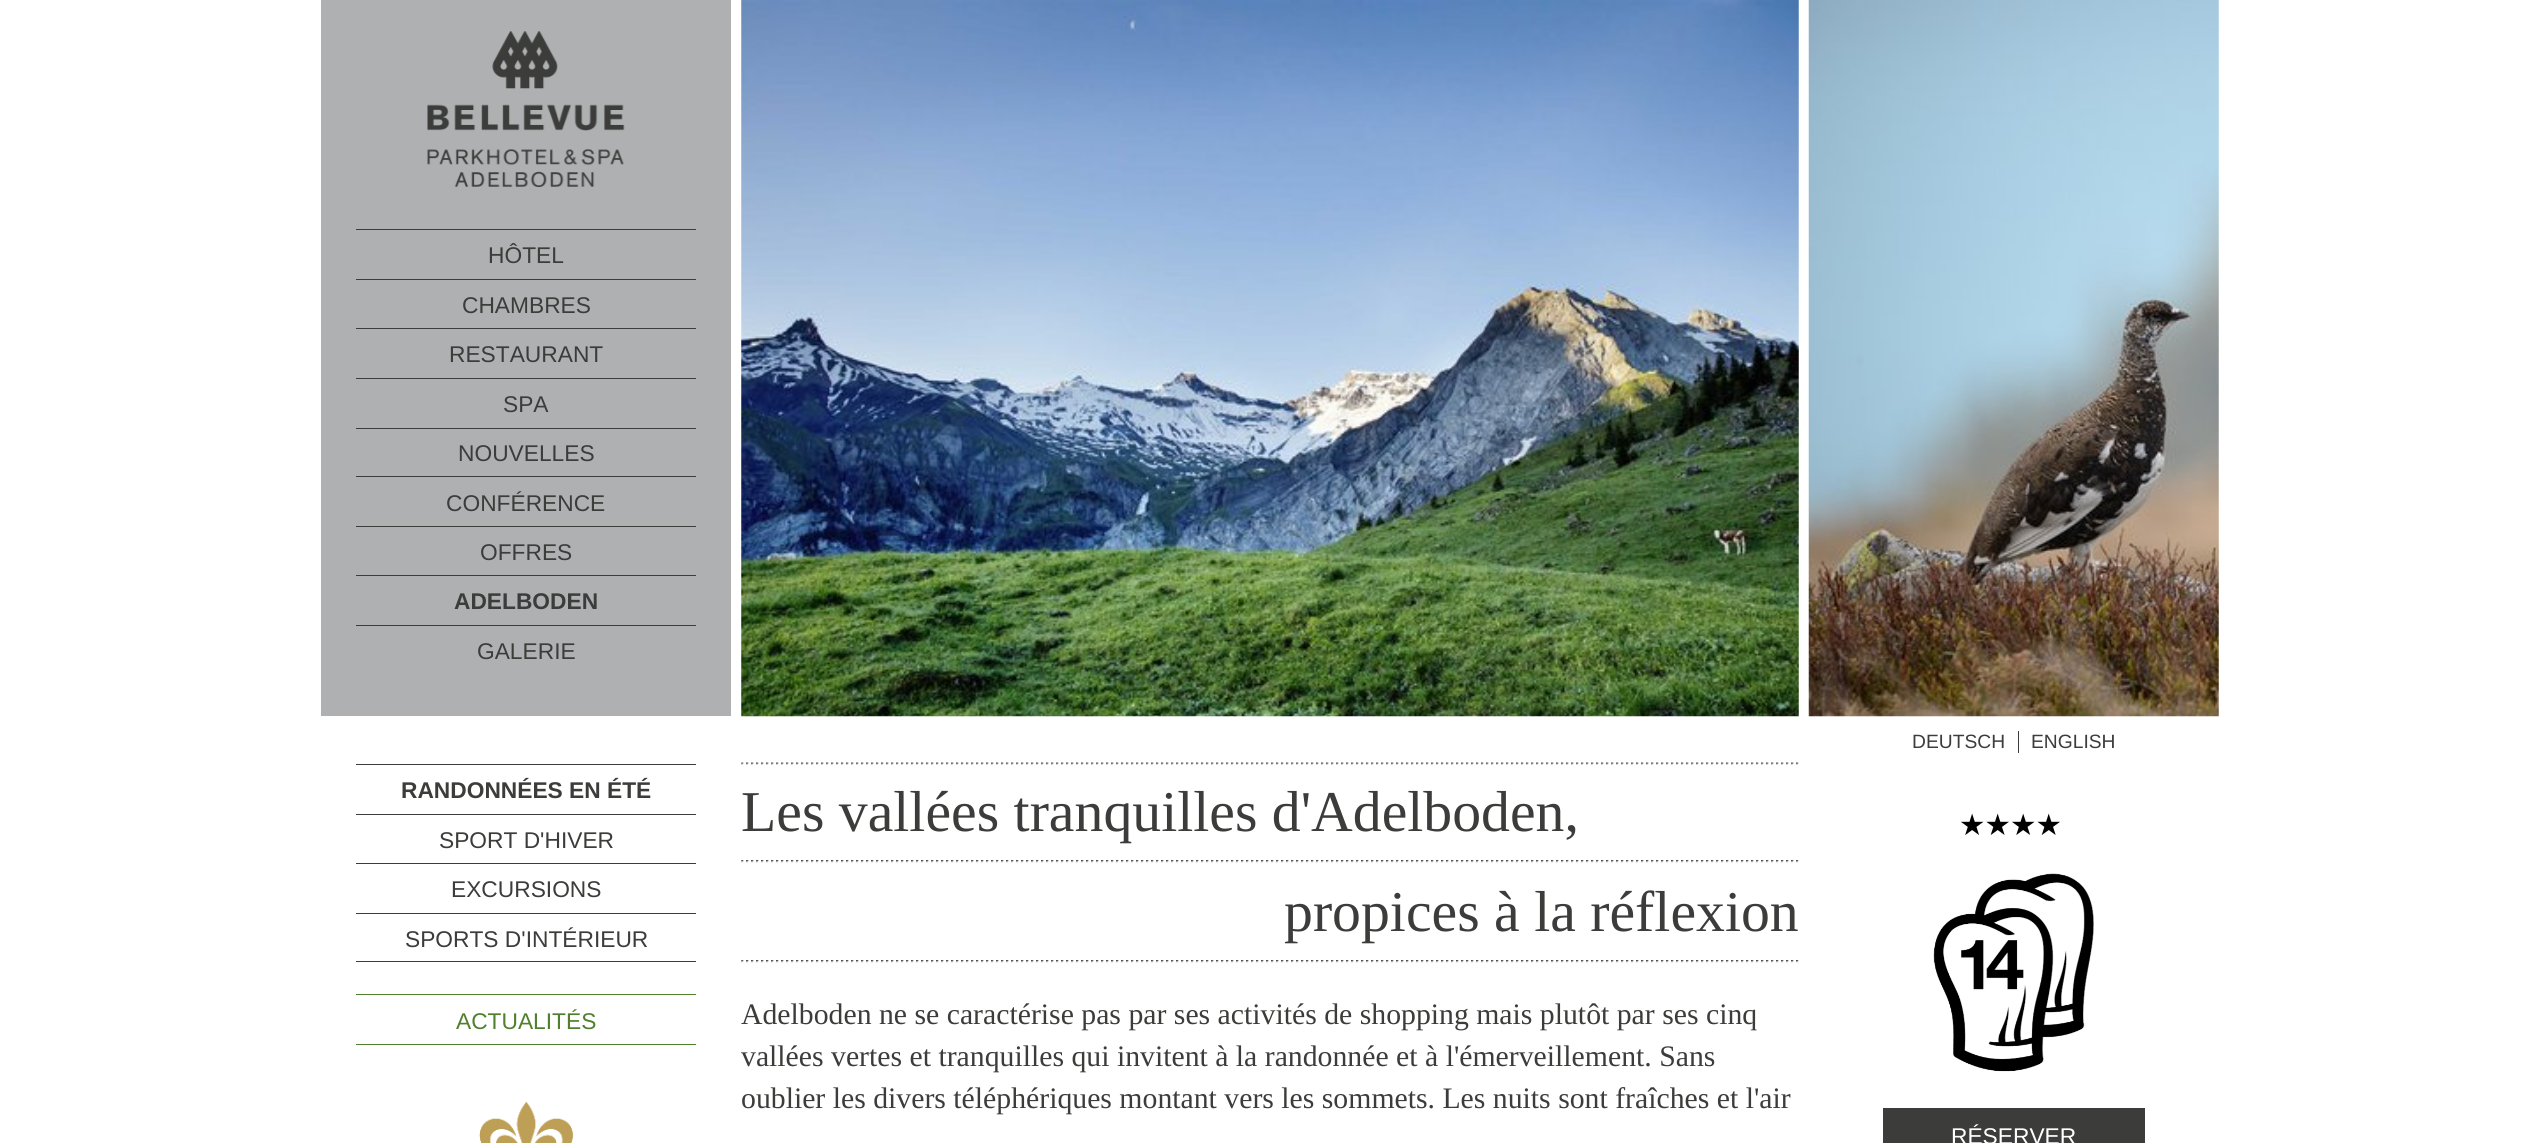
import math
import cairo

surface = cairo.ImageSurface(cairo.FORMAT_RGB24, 2540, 1143)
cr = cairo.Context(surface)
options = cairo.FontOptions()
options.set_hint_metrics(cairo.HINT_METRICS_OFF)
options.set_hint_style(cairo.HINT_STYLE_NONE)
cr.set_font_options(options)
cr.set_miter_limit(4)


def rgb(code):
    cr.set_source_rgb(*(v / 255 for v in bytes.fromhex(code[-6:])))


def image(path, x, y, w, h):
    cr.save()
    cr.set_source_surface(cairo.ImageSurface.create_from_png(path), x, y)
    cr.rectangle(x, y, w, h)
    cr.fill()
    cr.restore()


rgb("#ffffff")
cr.paint()
rgb("#afb0b2")
cr.rectangle(321, 0, 410, 716)
cr.fill()
image("img/1.png", 427, 31, 198, 156)
for x, y, w, h, color in [
    (356, 229, 340, 1, "#3c3c3b"),
    (356, 279, 340, 1, "#3c3c3b"),
    (356, 328, 340, 1, "#3c3c3b"),
    (356, 378, 340, 1, "#3c3c3b"),
    (356, 428, 340, 1, "#3c3c3b"),
    (356, 476, 340, 1, "#3c3c3b"),
    (356, 526, 340, 1, "#3c3c3b"),
    (356, 575, 340, 1, "#3c3c3b"),
    (356, 625, 340, 1, "#3c3c3b"),
]:
    rgb(color)
    cr.rectangle(x, y, w, h)
    cr.fill()
image("img/2.png", 741, 0, 1058, 717)
image("img/3.png", 1808, 0, 411, 717)
for x, y, w, h, color in [
    (2018, 731, 1, 22, "#3c3c3b"),
    (356, 764, 340, 1, "#3c3c3b"),
    (356, 814, 340, 1, "#3c3c3b"),
    (356, 863, 340, 1, "#3c3c3b"),
    (356, 961, 340, 1, "#3c3c3b"),
    (356, 913, 340, 1, "#3c3c3b"),
    (356, 1044, 340, 1, "#50802e"),
    (356, 994, 340, 1, "#50802e"),
]:
    rgb(color)
    cr.rectangle(x, y, w, h)
    cr.fill()
image("img/4.png", 479, 1101, 95, 42)
image("img/5.png", 741, 762, 1058, 3)
image("img/6.png", 741, 860, 1058, 3)
image("img/7.png", 741, 960, 1058, 3)
image("img/8.png", 1961, 813, 99, 22)
image("img/9.png", 1933, 873, 161, 199)
rgb("#3c3c3b")
cr.rectangle(1883, 1108, 262, 35)
cr.fill()
cr.select_font_face("Liberation Sans")
cr.set_font_size(22.75)
for x, y, s in [
    (488, 263, "HÔTEL"),
    (462, 313, "CHAMBRES"),
    (449, 362, "RESTAURANT"),
    (503, 412, "SPA"),
    (458, 461, "NOUVELLES"),
    (446, 511, "CONFÉRENCE"),
    (480, 560, "OFFRES"),
]:
    cr.move_to(x, y)
    cr.show_text(s)
cr.select_font_face("Liberation Sans", cairo.FONT_SLANT_NORMAL, cairo.FONT_WEIGHT_BOLD)
cr.move_to(454, 609)
cr.show_text("ADELBODEN")
cr.select_font_face("Liberation Sans")
cr.move_to(477, 659)
cr.show_text("GALERIE")
cr.set_font_size(19.25)
cr.move_to(1912, 748)
cr.show_text("DEUTSCH")
cr.move_to(2031, 748)
cr.show_text("ENGLISH")
cr.select_font_face("Liberation Sans", cairo.FONT_SLANT_NORMAL, cairo.FONT_WEIGHT_BOLD)
cr.set_font_size(22.75)
cr.move_to(401, 798)
cr.show_text("RANDONNÉES EN ÉTÉ")
cr.select_font_face("Liberation Sans")
for x, y, s in [
    (439, 848, "SPORT D'HIVER"),
    (451, 897, "EXCURSIONS"),
    (405, 947, "SPORTS D'INTÉRIEUR"),
]:
    cr.move_to(x, y)
    cr.show_text(s)
rgb("#50802e")
cr.move_to(456, 1029)
cr.show_text("ACTUALITÉS")
cr.select_font_face("Liberation Serif")
cr.set_font_size(57.75)
rgb("#3c3c3b")
cr.move_to(741, 831)
cr.show_text("Les vallées tranquilles d'Adelboden,")
cr.move_to(1284, 931)
cr.show_text("propices à la réflexion")
cr.set_font_size(29.75)
for x, y, s in [
    (741, 1024, "Adelboden ne se caractérise pas par ses activités de shopping mais plutôt par ses cinq"),
    (741, 1066, "vallées vertes et tranquilles qui invitent à la randonnée et à l'émerveillement. Sans"),
    (741, 1108, "oublier les divers téléphériques montant vers les sommets. Les nuits sont fraîches et l'air"),
]:
    cr.move_to(x, y)
    cr.show_text(s)
cr.select_font_face("Liberation Sans")
cr.set_font_size(22.75)
rgb("#ffffff")
cr.move_to(1951, 1144)
cr.show_text("RÉSERVER")
surface.write_to_png("page.png")
